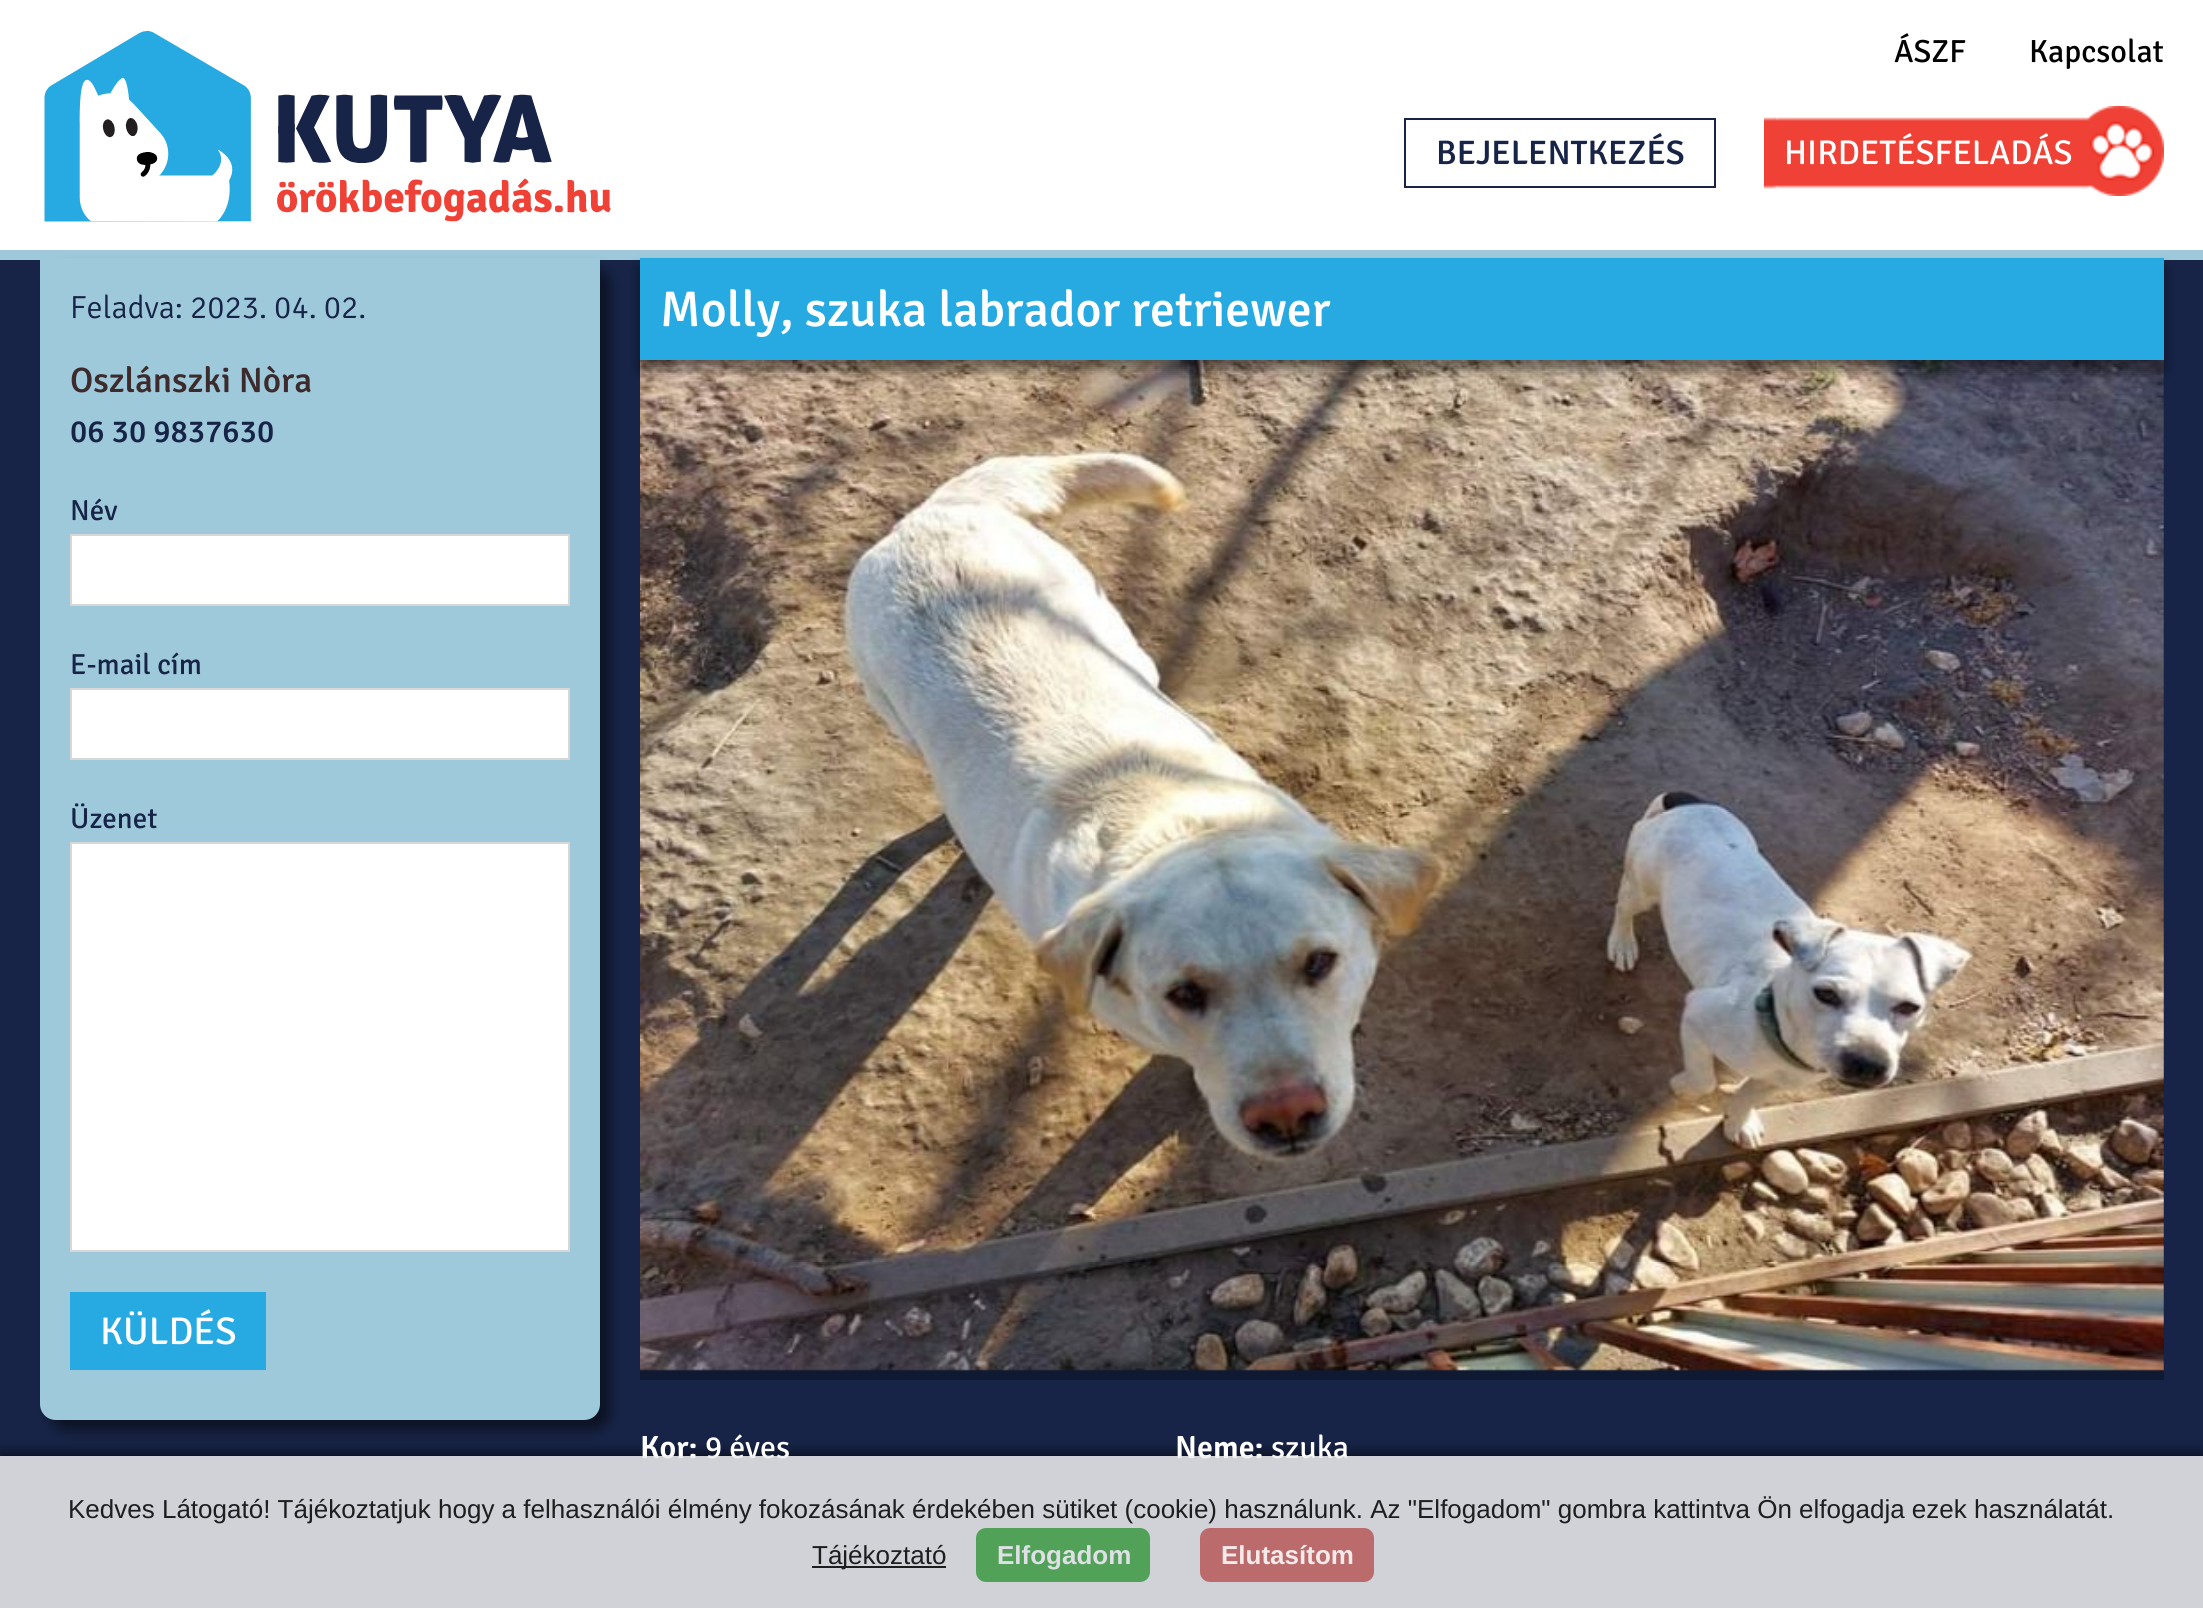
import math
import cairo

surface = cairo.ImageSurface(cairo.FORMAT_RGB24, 2203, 1608)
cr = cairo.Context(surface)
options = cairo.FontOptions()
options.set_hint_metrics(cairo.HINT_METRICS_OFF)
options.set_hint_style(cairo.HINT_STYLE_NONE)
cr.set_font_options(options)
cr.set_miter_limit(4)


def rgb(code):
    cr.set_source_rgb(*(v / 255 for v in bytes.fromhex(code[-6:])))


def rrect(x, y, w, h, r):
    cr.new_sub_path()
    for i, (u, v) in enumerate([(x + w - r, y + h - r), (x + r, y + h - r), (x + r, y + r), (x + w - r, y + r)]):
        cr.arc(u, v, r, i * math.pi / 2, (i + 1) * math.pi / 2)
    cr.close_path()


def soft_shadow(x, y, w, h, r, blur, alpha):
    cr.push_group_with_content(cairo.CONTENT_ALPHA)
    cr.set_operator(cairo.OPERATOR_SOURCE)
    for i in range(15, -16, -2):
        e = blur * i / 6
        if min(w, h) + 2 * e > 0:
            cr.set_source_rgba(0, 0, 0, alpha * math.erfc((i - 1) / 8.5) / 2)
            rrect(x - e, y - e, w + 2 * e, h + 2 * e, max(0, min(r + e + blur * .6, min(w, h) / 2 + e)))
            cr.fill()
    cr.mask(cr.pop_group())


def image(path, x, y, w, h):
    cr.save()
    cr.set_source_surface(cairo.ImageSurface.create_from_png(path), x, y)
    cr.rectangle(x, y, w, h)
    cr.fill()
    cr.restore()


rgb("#172447")
cr.paint()
rgb("#ffffff")
cr.rectangle(0, 0, 2203, 250)
cr.fill()
rgb("#9dc9db")
cr.rectangle(0, 250, 2203, 10)
cr.fill()
image("img/1.png", 44, 31, 567, 191)
cr.rectangle(1405, 119, 310, 68)
rgb("#172447")
cr.stroke()
image("img/2.png", 1764, 106, 400, 90)
rgb("#000000")
soft_shadow(50, 268, 560, 1162, 16, 6, 0.5)
rgb("#9dc9db")
cr.new_path()
cr.move_to(40, 258)
cr.line_to(600, 258)
cr.line_to(600, 1404)
cr.curve_to(600, 1413, 593, 1420, 584, 1420)
cr.line_to(56, 1420)
cr.curve_to(47, 1420, 40, 1413, 40, 1404)
cr.close_path()
cr.fill()
rgb("#ffffff")
cr.rectangle(71, 535, 498, 70)
cr.fill_preserve()
rgb("#d7d7d7")
cr.stroke()
rgb("#ffffff")
cr.rectangle(71, 689, 498, 70)
cr.fill_preserve()
rgb("#d7d7d7")
cr.stroke()
rgb("#ffffff")
cr.rectangle(71, 843, 498, 408)
cr.fill_preserve()
rgb("#d7d7d7")
cr.stroke()
rgb("#27aae1")
cr.rectangle(70, 1292, 196, 78)
cr.fill()
rgb("#101932")
cr.rectangle(640, 360, 1524, 1020)
cr.fill()
image("img/3.png", 640, 360, 1524, 1011)
rgb("#000000")
soft_shadow(640, 268, 1524, 102, 0, 6, 0.5)
rgb("#27aae1")
cr.rectangle(640, 258, 1524, 102)
cr.fill()
cr.save()
cr.rectangle(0, 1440, 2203, 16)
cr.clip()
rgb("#000000")
soft_shadow(0, 1456, 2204, 152, 0, 8, 0.86)
cr.restore()
cr.select_font_face("Signika")
cr.set_font_size(32)
rgb("#000000")
cr.move_to(1894, 62)
cr.show_text("ÁSZF")
cr.move_to(2029, 62)
cr.show_text("Kapcsolat")
cr.select_font_face("Signika Medium")
cr.set_font_size(34)
rgb("#172447")
cr.move_to(1436, 164)
cr.show_text("BEJELENTKEZÉS")
cr.select_font_face("Signika")
cr.set_font_size(34.25)
rgb("#ffffff")
cr.move_to(1784, 164)
cr.show_text("HIRDETÉSFELADÁS")
cr.select_font_face("Signika Light")
cr.set_font_size(32)
rgb("#172447")
cr.move_to(70, 318)
cr.show_text("Feladva: 2023. 04. 02.")
cr.select_font_face("Signika Medium")
cr.set_font_size(35.25)
rgb("#3c2a2d")
cr.move_to(70, 392)
cr.show_text("Oszlánszki Nòra")
cr.set_font_size(32)
rgb("#172447")
cr.move_to(70, 442)
cr.show_text("06 30 9837630")
cr.select_font_face("Signika")
cr.set_font_size(29)
for x, y, s in [
    (70, 520, "Név"),
    (70, 674, "E-mail cím"),
    (70, 828, "Üzenet"),
]:
    cr.move_to(x, y)
    cr.show_text(s)
cr.set_font_size(38.5)
rgb("#ffffff")
cr.move_to(100, 1344)
cr.show_text("KÜLDÉS")
cr.select_font_face("Signika Medium")
cr.set_font_size(50)
cr.move_to(660, 326)
cr.show_text("Molly, szuka labrador retriewer")
cr.select_font_face("Signika SemiBold")
cr.set_font_size(32)
cr.move_to(640, 1458)
cr.show_text("Kor:")
cr.select_font_face("Signika")
cr.move_to(705, 1458)
cr.show_text("9 éves")
cr.select_font_face("Signika SemiBold")
cr.move_to(1175, 1458)
cr.show_text("Neme:")
cr.select_font_face("Signika")
cr.move_to(1271, 1458)
cr.show_text("szuka")
cr.set_source_rgba(0.933, 0.933, 0.933, 0.86)
cr.rectangle(0, 1456, 2203, 152)
cr.fill()
cr.select_font_face("Liberation Sans")
cr.set_font_size(26)
rgb("#1e1e1f")
cr.move_to(68, 1518)
cr.show_text("Kedves Látogató! Tájékoztatjuk hogy a felhasználói élmény fokozásának érdekében sütiket (cookie) használunk. Az \"Elfogadom\" gombra kattintva Ön elfogadja ezek használatát.")
cr.set_source_rgba(0, 0, 0, 0.86)
cr.rectangle(812, 1566, 134, 2)
cr.fill()
rgb("#1e1e1f")
cr.move_to(812, 1564)
cr.show_text("Tájékoztató")
rgb("#51a258")
rrect(976, 1528, 174, 54, 10)
cr.fill()
cr.select_font_face("Liberation Sans", cairo.FONT_SLANT_NORMAL, cairo.FONT_WEIGHT_BOLD)
rgb("#dee0e5")
cr.move_to(997, 1564)
cr.show_text("Elfogadom")
cr.set_source_rgba(0.718, 0.357, 0.357, 0.86)
rrect(1200, 1528, 174, 54, 10)
cr.fill()
rgb("#f5eaea")
cr.move_to(1221, 1564)
cr.show_text("Elutasítom")
surface.write_to_png("page.png")
